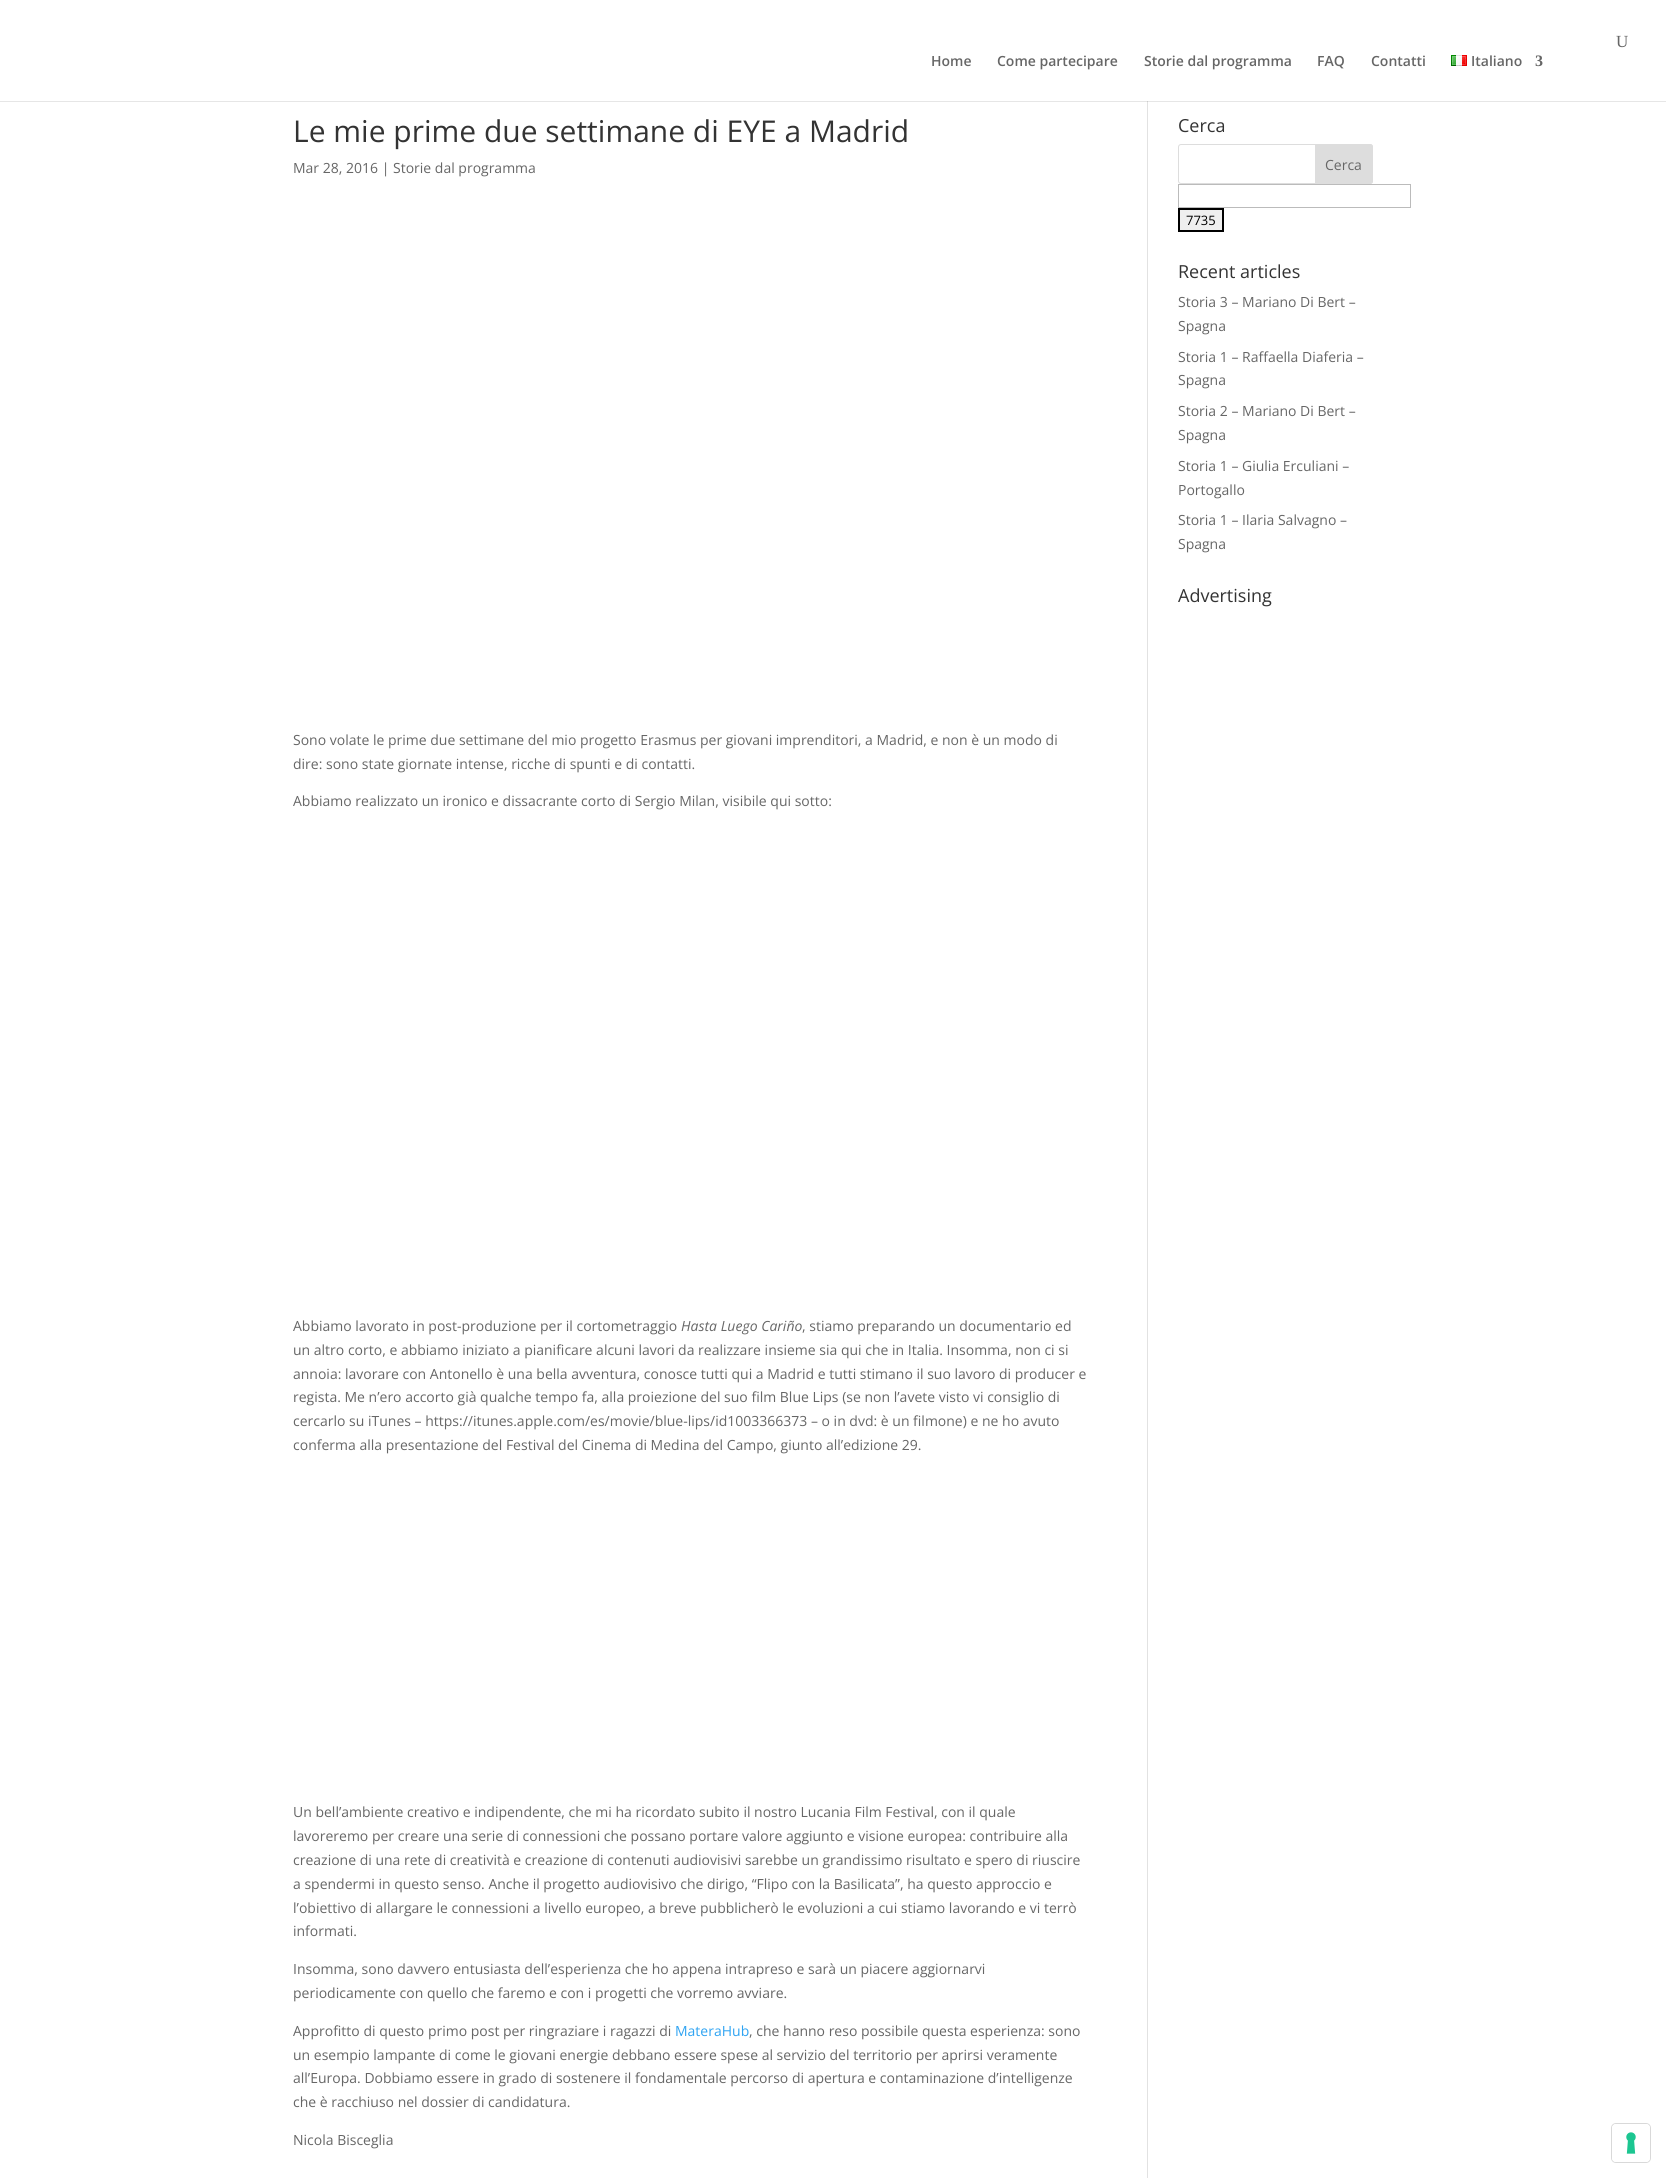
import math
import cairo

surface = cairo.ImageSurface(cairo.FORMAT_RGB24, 1666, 2178)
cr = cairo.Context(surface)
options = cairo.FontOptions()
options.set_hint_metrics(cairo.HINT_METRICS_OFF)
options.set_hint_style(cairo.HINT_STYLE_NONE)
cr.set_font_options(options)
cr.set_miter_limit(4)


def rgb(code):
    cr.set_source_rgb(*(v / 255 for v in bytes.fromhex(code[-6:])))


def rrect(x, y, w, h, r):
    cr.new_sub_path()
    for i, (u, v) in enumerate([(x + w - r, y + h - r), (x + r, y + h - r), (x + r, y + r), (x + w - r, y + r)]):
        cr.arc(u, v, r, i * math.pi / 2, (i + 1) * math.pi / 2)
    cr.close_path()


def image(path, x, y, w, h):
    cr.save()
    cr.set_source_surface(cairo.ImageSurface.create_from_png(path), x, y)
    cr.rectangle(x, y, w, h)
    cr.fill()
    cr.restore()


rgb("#ffffff")
cr.paint()
rgb("#e6e6e6")
cr.rectangle(0, 101, 1666, 1)
cr.fill()
image("img/1.png", 1451, 55, 16, 11)
rgb("#e2e2e2")
cr.rectangle(1147, 102, 1, 2076)
cr.fill()
rgb("#cbcbcb")
cr.rectangle(1147, 101, 1, 1)
cr.fill()
rrect(1178.5, 144.5, 194, 39, 2.5)
rgb("#dddddd")
cr.set_line_width(1)
cr.stroke()
cr.new_path()
cr.move_to(1315.5, 144.5)
cr.line_to(1370, 144.5)
cr.curve_to(1371.5, 144.5, 1372.5, 145.5, 1372.5, 147)
cr.line_to(1372.5, 181)
cr.curve_to(1372.5, 182.5, 1371.5, 183.5, 1370, 183.5)
cr.line_to(1315.5, 183.5)
cr.close_path()
cr.fill_preserve()
cr.stroke()
cr.rectangle(1178.5, 184.5, 232, 23)
rgb("#bbbbbb")
cr.stroke()
rgb("#efefef")
cr.rectangle(1179, 209, 44, 22)
cr.fill_preserve()
rgb("#000000")
cr.set_line_width(2)
cr.stroke()
rrect(1611.5, 2123.5, 39, 39, 4.5)
rgb("#d9d9d9")
cr.set_line_width(1)
cr.stroke()
rgb("#ffffff")
rrect(1612, 2124, 38, 38, 4)
cr.fill()
image("img/2.png", 1626, 2132, 10, 22)
cr.select_font_face("Liberation Serif")
cr.set_font_size(17)
rgb("#666666")
cr.move_to(1616, 47)
cr.show_text("U")
cr.select_font_face("Open Sans SemiBold")
cr.set_font_size(14)
for x, y, s in [
    (931, 66, "Home"),
    (997, 66, "Come partecipare"),
    (1144, 66, "Storie dal programma"),
    (1317, 66, "FAQ"),
    (1371, 66, "Contatti"),
    (1471, 66, "Italiano"),
]:
    cr.move_to(x, y)
    cr.show_text(s)
cr.select_font_face("Liberation Serif", cairo.FONT_SLANT_NORMAL, cairo.FONT_WEIGHT_BOLD)
cr.set_font_size(16)
cr.move_to(1535, 66)
cr.show_text("3")
cr.select_font_face("Open Sans")
cr.set_font_size(30)
rgb("#333333")
cr.move_to(293, 142)
cr.show_text("Le mie prime due settimane di EYE a Madrid")
cr.set_font_size(14)
rgb("#666666")
for x, y, s in [
    (293, 173, "Mar 28, 2016 | Storie dal programma"),
    (293, 745, "Sono volate le prime due settimane del mio progetto Erasmus per giovani imprenditori, a Madrid, e non è un modo di"),
    (293, 769, "dire: sono state giornate intense, ricche di spunti e di contatti."),
    (293, 806, "Abbiamo realizzato un ironico e dissacrante corto di Sergio Milan, visibile qui sotto:"),
    (293, 1331, "Abbiamo lavorato in post-produzione per il cortometraggio"),
]:
    cr.move_to(x, y)
    cr.show_text(s)
cr.select_font_face("Open Sans", cairo.FONT_SLANT_ITALIC)
cr.move_to(681, 1331)
cr.show_text("Hasta Luego Cariño")
cr.select_font_face("Open Sans")
for x, y, s in [
    (802, 1331, ", stiamo preparando un documentario ed"),
    (293, 1355, "un altro corto, e abbiamo iniziato a pianificare alcuni lavori da realizzare insieme sia qui che in Italia. Insomma, non ci si"),
    (293, 1379, "annoia: lavorare con Antonello è una bella avventura, conosce tutti qui a Madrid e tutti stimano il suo lavoro di producer e"),
    (293, 1402, "regista. Me n’ero accorto già qualche tempo fa, alla proiezione del suo film Blue Lips (se non l’avete visto vi consiglio di"),
    (293, 1426, "cercarlo su iTunes – https://itunes.apple.com/es/movie/blue-lips/id1003366373 – o in dvd: è un filmone) e ne ho avuto"),
    (293, 1450, "conferma alla presentazione del Festival del Cinema di Medina del Campo, giunto all’edizione 29."),
    (293, 1817, "Un bell’ambiente creativo e indipendente, che mi ha ricordato subito il nostro Lucania Film Festival, con il quale"),
    (293, 1841, "lavoreremo per creare una serie di connessioni che possano portare valore aggiunto e visione europea: contribuire alla"),
    (293, 1865, "creazione di una rete di creatività e creazione di contenuti audiovisivi sarebbe un grandissimo risultato e spero di riuscire"),
    (293, 1889, "a spendermi in questo senso. Anche il progetto audiovisivo che dirigo, “Flipo con la Basilicata”, ha questo approccio e"),
    (293, 1913, "l’obiettivo di allargare le connessioni a livello europeo, a breve pubblicherò le evoluzioni a cui stiamo lavorando e vi terrò"),
    (293, 1936, "informati."),
    (293, 1974, "Insomma, sono davvero entusiasta dell’esperienza che ho appena intrapreso e sarà un piacere aggiornarvi"),
    (293, 1998, "periodicamente con quello che faremo e con i progetti che vorremo avviare."),
    (293, 2036, "Approfitto di questo primo post per ringraziare i ragazzi di"),
]:
    cr.move_to(x, y)
    cr.show_text(s)
rgb("#2ea3f2")
cr.move_to(675, 2036)
cr.show_text("MateraHub")
rgb("#666666")
for x, y, s in [
    (749, 2036, ", che hanno reso possibile questa esperienza: sono"),
    (293, 2060, "un esempio lampante di come le giovani energie debbano essere spese al servizio del territorio per aprirsi veramente"),
    (293, 2083, "all’Europa. Dobbiamo essere in grado di sostenere il fondamentale percorso di apertura e contaminazione d’intelligenze"),
    (293, 2107, "che è racchiuso nel dossier di candidatura."),
    (293, 2145, "Nicola Bisceglia"),
]:
    cr.move_to(x, y)
    cr.show_text(s)
cr.set_font_size(18)
rgb("#333333")
cr.move_to(1178, 132)
cr.show_text("Cerca")
cr.set_font_size(14)
rgb("#666666")
cr.move_to(1325, 170)
cr.show_text("Cerca")
cr.set_font_size(13)
rgb("#000000")
cr.move_to(1186, 225)
cr.show_text("7735")
cr.set_font_size(18)
rgb("#333333")
cr.move_to(1178, 278)
cr.show_text("Recent articles")
cr.set_font_size(14)
rgb("#666666")
for x, y, s in [
    (1178, 307, "Storia 3 – Mariano Di Bert –"),
    (1178, 331, "Spagna"),
    (1178, 362, "Storia 1 – Raffaella Diaferia –"),
    (1178, 385, "Spagna"),
    (1178, 416, "Storia 2 – Mariano Di Bert –"),
    (1178, 440, "Spagna"),
    (1178, 471, "Storia 1 – Giulia Erculiani –"),
    (1178, 495, "Portogallo"),
    (1178, 525, "Storia 1 – Ilaria Salvagno –"),
    (1178, 549, "Spagna"),
]:
    cr.move_to(x, y)
    cr.show_text(s)
cr.set_font_size(18)
rgb("#333333")
cr.move_to(1178, 602)
cr.show_text("Advertising")
surface.write_to_png("page.png")
